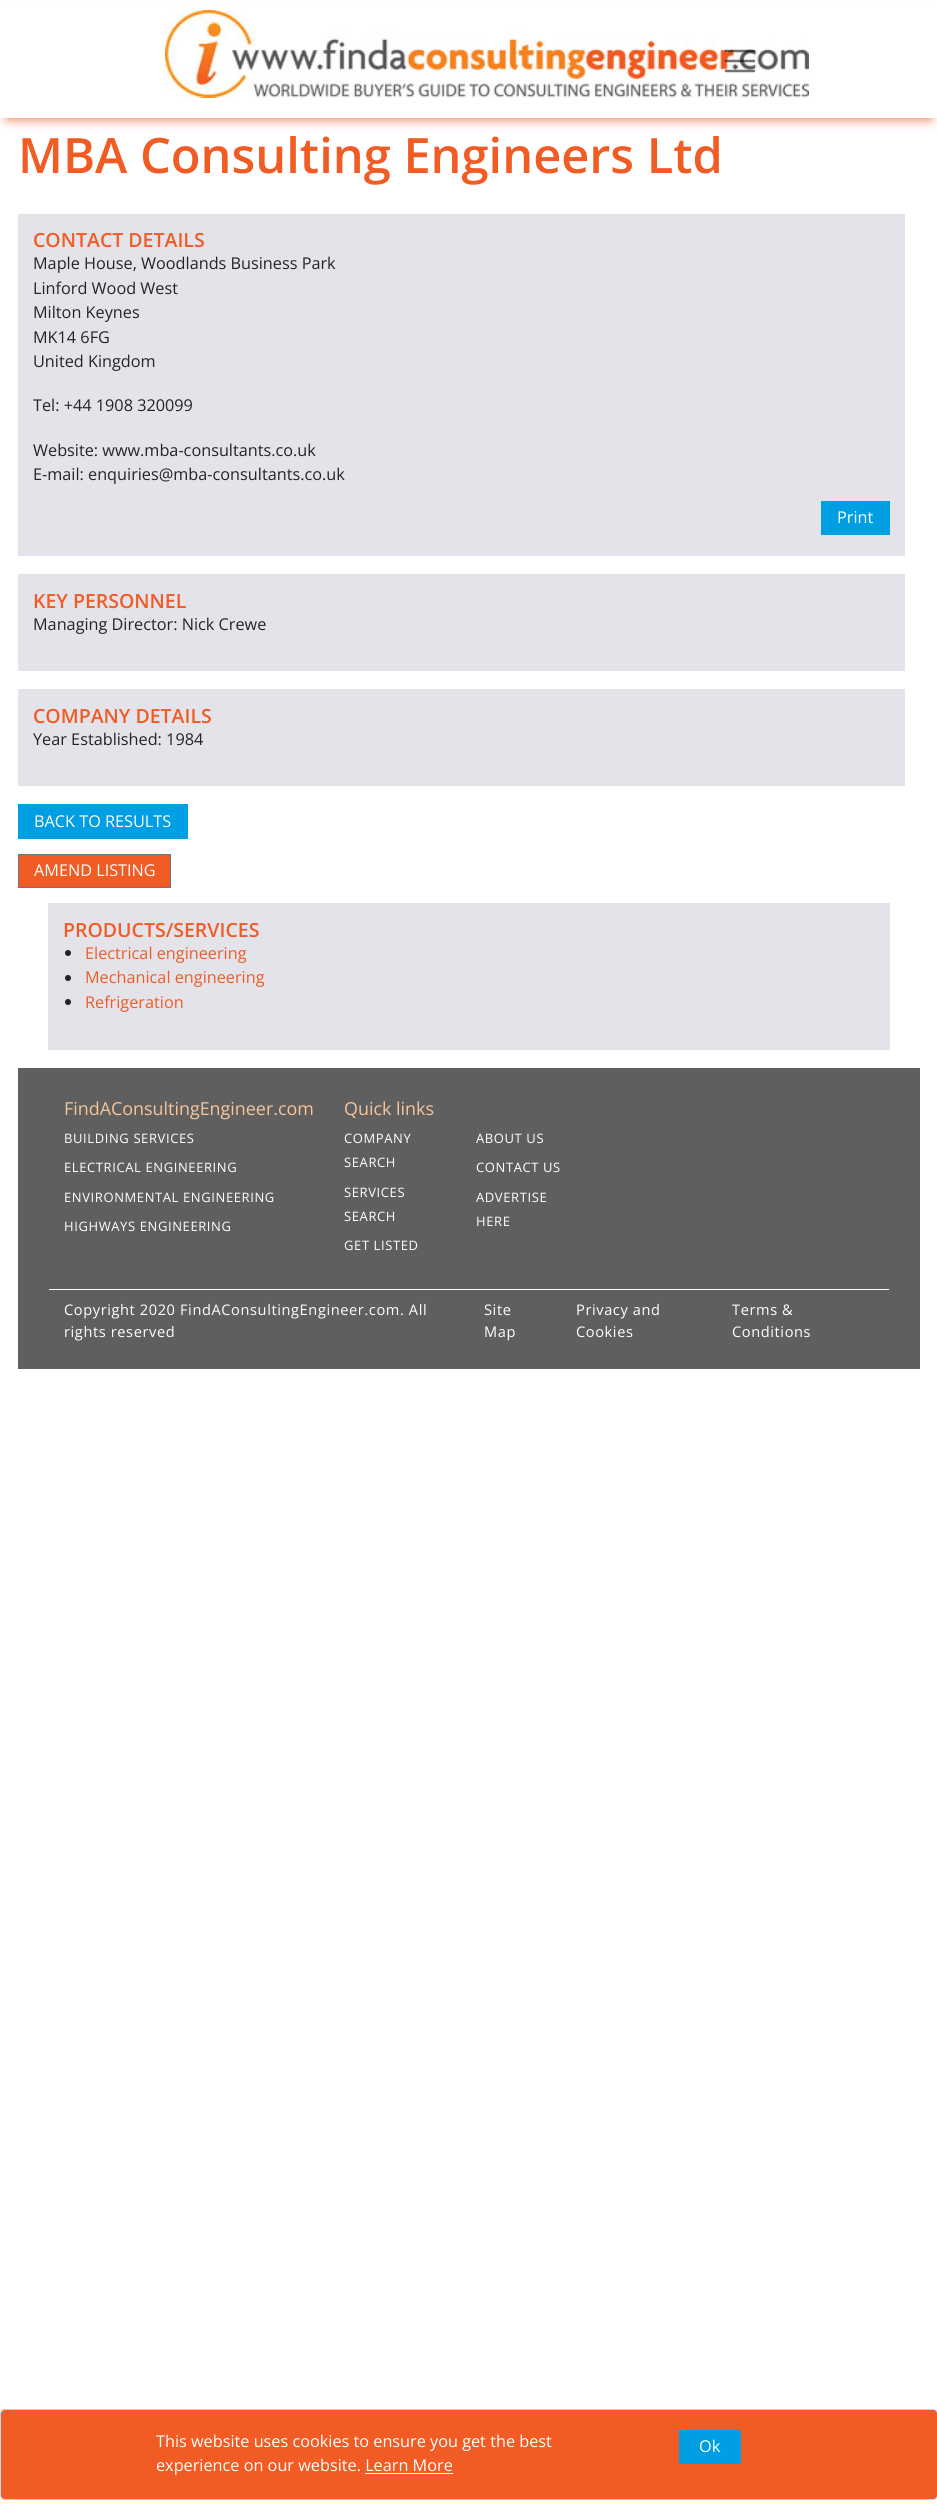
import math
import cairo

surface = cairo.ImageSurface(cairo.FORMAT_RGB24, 937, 2519)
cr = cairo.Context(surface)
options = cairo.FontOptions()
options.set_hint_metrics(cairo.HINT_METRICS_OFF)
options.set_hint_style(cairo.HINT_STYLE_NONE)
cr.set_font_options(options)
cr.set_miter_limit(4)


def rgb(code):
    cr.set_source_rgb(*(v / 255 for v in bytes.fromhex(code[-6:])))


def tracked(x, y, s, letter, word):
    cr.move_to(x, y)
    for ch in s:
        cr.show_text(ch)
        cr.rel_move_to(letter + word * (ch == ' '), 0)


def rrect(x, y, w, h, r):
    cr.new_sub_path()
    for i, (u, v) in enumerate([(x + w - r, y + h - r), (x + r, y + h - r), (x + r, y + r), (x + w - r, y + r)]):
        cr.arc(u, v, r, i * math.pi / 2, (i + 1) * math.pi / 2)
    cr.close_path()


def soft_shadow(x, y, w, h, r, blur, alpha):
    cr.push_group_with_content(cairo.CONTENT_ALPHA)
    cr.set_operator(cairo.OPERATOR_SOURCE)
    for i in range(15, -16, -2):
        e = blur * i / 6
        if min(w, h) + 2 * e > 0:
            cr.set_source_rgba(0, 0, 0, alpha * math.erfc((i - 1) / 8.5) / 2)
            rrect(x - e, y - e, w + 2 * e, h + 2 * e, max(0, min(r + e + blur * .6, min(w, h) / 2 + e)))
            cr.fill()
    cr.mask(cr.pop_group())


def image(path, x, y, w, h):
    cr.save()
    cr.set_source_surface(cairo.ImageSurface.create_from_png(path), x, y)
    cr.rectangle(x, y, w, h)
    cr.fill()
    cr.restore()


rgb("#ffffff")
cr.paint()
rgb("#f15b24")
soft_shadow(8, 15, 922, 103, 0, 6, 1)
rgb("#ffffff")
cr.rectangle(0, 1, 937, 117)
cr.fill()
image("img/1.png", 165, 10, 644, 88)
cr.new_path()
cr.move_to(726, 51)
cr.line_to(754, 51)
cr.move_to(726, 61)
cr.line_to(754, 61)
cr.move_to(726, 71)
cr.line_to(754, 71)
cr.set_source_rgba(0, 0, 0, 0.55)
cr.set_line_width(2.5)
cr.set_line_cap(cairo.LINE_CAP_ROUND)
cr.stroke()
for x, y, w, h, color in [
    (18, 214, 887, 342, "#e4e3e9"),
    (821, 501, 69, 34, "#009ee3"),
    (18, 574, 887, 97, "#e4e3e9"),
    (18, 689, 887, 97, "#e4e3e9"),
    (18, 804, 170, 35, "#009ee3"),
]:
    rgb(color)
    cr.rectangle(x, y, w, h)
    cr.fill()
rgb("#f15b24")
cr.rectangle(18.5, 854.5, 152, 33)
cr.fill_preserve()
rgb("#6c757d")
cr.set_line_width(1)
cr.set_line_cap(cairo.LINE_CAP_BUTT)
cr.stroke()
rgb("#e4e3e9")
cr.rectangle(48, 903, 842, 147)
cr.fill()
rgb("#212529")
cr.arc(68, 953, 3, 0, 2 * math.pi)
cr.fill()
cr.arc(68, 978, 3, 0, 2 * math.pi)
cr.fill()
cr.arc(68, 1002, 3, 0, 2 * math.pi)
cr.fill()
rgb("#5f5f5f")
cr.rectangle(18, 1068, 902, 301)
cr.fill()
rgb("#ffffff")
cr.rectangle(49, 1289, 840, 1)
cr.fill()
rgb("#f15b24")
rrect(0.5, 2409.5, 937, 90, 4.5)
cr.fill_preserve()
rgb("#b6d4fe")
cr.stroke()
rgb("#ffffff")
cr.rectangle(365, 2473, 88, 1)
cr.fill()
rgb("#009ee3")
cr.rectangle(679, 2430, 62, 34)
cr.fill()
cr.select_font_face("Open Sans SemiBold")
cr.set_font_size(48.75)
rgb("#f15b24")
cr.move_to(18, 173)
cr.show_text("MBA Consulting Engineers Ltd")
cr.set_font_size(19.5)
cr.move_to(33, 247)
cr.show_text("CONTACT DETAILS")
cr.select_font_face("Open Sans")
cr.set_font_size(16.25)
rgb("#212529")
for x, y, s in [
    (33, 269, "Maple House, Woodlands Business Park"),
    (33, 294, "Linford Wood West"),
    (33, 318, "Milton Keynes"),
    (33, 343, "MK14 6FG"),
    (33, 367, "United Kingdom"),
    (33, 411, "Tel: +44 1908 320099"),
    (33, 456, "Website: www.mba-consultants.co.uk"),
    (33, 480, "E-mail: enquiries@mba-consultants.co.uk"),
]:
    cr.move_to(x, y)
    cr.show_text(s)
rgb("#ffffff")
cr.move_to(837, 523)
cr.show_text("Print")
cr.select_font_face("Open Sans SemiBold")
cr.set_font_size(19.5)
rgb("#f15b24")
cr.move_to(33, 608)
cr.show_text("KEY PERSONNEL")
cr.select_font_face("Open Sans")
cr.set_font_size(16.25)
rgb("#212529")
cr.move_to(33, 630)
cr.show_text("Managing Director: Nick Crewe")
cr.select_font_face("Open Sans SemiBold")
cr.set_font_size(19.5)
rgb("#f15b24")
cr.move_to(33, 723)
cr.show_text("COMPANY DETAILS")
cr.select_font_face("Open Sans")
cr.set_font_size(16.25)
rgb("#212529")
cr.move_to(33, 745)
cr.show_text("Year Established: 1984")
rgb("#ffffff")
cr.move_to(34, 827)
cr.show_text("BACK TO RESULTS")
cr.move_to(34, 876)
cr.show_text("AMEND LISTING")
cr.select_font_face("Open Sans SemiBold")
cr.set_font_size(19.5)
rgb("#f15b24")
cr.move_to(63, 937)
cr.show_text("PRODUCTS/SERVICES")
cr.select_font_face("Open Sans")
cr.set_font_size(16.25)
for x, y, s in [
    (85, 959, "Electrical engineering"),
    (85, 983, "Mechanical engineering"),
    (85, 1008, "Refrigeration"),
]:
    cr.move_to(x, y)
    cr.show_text(s)
cr.set_font_size(17.9)
rgb("#f6c59b")
cr.move_to(64, 1115)
cr.show_text("FindAConsultingEngineer.com")
cr.set_font_size(13)
rgb("#ffffff")
for x, y, s in [
    (64, 1143, "BUILDING SERVICES"),
    (64, 1172, "ELECTRICAL ENGINEERING"),
    (64, 1202, "ENVIRONMENTAL ENGINEERING"),
    (64, 1231, "HIGHWAYS ENGINEERING"),
]:
    tracked(x, y, s, 0.6, 0)
cr.set_font_size(17.9)
rgb("#f6c59b")
cr.move_to(344, 1115)
cr.show_text("Quick links")
cr.set_font_size(13)
rgb("#ffffff")
for x, y, s in [
    (344, 1143, "COMPANY"),
    (344, 1167, "SEARCH"),
    (344, 1197, "SERVICES"),
    (344, 1221, "SEARCH"),
    (344, 1250, "GET LISTED"),
    (476, 1143, "ABOUT US"),
    (476, 1172, "CONTACT US"),
    (476, 1202, "ADVERTISE"),
    (476, 1226, "HERE"),
]:
    tracked(x, y, s, 0.6, 0)
cr.set_font_size(14.6)
for x, y, s in [
    (64, 1315, "Copyright 2020 FindAConsultingEngineer.com. All"),
    (64, 1337, "rights reserved"),
    (484, 1315, "Site"),
    (484, 1337, "Map"),
    (576, 1315, "Privacy and"),
    (576, 1337, "Cookies"),
    (732, 1315, "Terms &"),
    (732, 1337, "Conditions"),
]:
    tracked(x, y, s, 0.6, 0)
cr.set_font_size(16.25)
for x, y, s in [
    (156, 2447, "This website uses cookies to ensure you get the best"),
    (156, 2471, "experience on our website. Learn More"),
    (699, 2452, "Ok"),
]:
    cr.move_to(x, y)
    cr.show_text(s)
surface.write_to_png("page.png")
